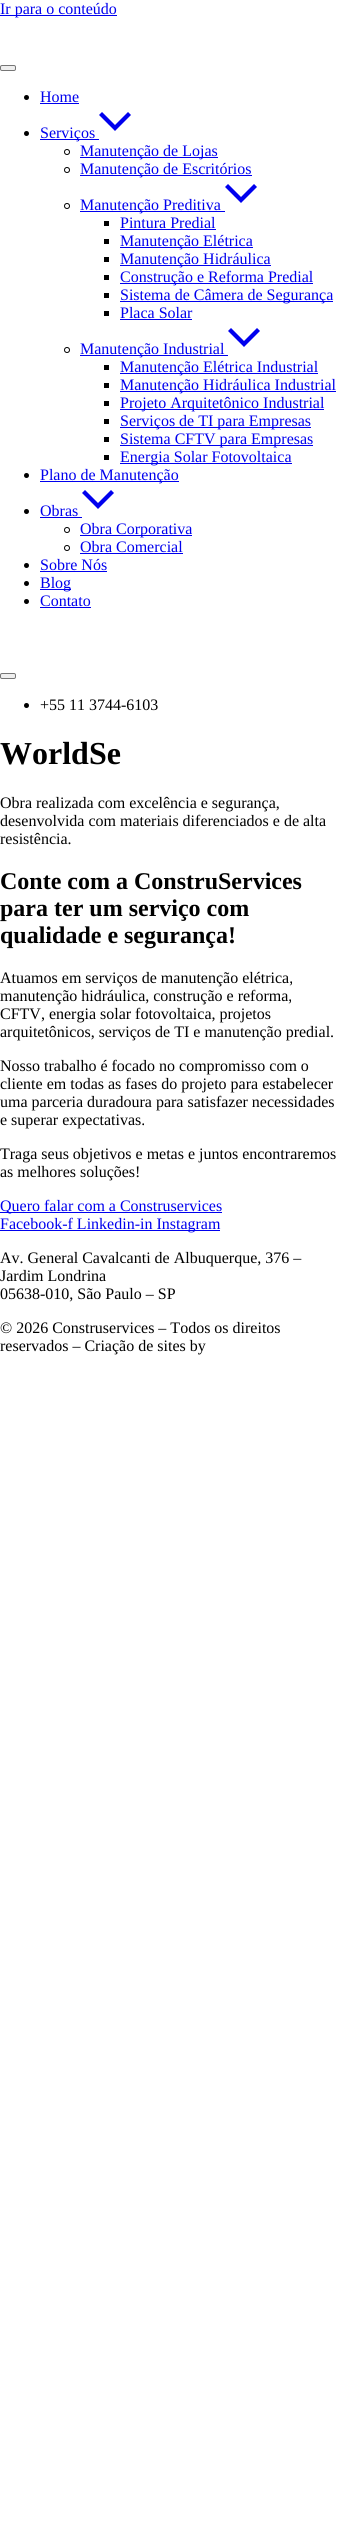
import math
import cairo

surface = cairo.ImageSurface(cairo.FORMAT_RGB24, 341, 2548)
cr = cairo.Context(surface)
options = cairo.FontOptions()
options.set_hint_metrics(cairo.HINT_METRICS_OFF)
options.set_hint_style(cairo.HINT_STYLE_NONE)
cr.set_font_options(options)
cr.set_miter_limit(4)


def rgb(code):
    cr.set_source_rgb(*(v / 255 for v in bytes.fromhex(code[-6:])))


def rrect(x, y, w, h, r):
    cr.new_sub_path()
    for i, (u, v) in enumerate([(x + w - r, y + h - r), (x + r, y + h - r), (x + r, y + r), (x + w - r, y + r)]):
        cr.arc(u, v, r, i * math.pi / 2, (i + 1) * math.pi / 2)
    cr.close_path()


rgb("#ffffff")
cr.paint()
rgb("#0000ee")
cr.rectangle(0, 15, 117, 1)
cr.fill()
rgb("#efefef")
rrect(0.5, 65.5, 15, 5, 1.5)
cr.fill_preserve()
rgb("#767676")
cr.set_line_width(1)
cr.stroke()
rgb("#000000")
cr.arc(26.5, 97.5, 2.5, 0, 2 * math.pi)
cr.fill()
rgb("#0000ee")
cr.rectangle(40, 103, 39, 1)
cr.fill()
rgb("#000000")
cr.arc(26.5, 133.5, 2.5, 0, 2 * math.pi)
cr.fill()
rgb("#0000ee")
cr.rectangle(40, 139, 59, 1)
cr.fill()
cr.new_path()
cr.move_to(102, 112)
cr.line_to(99, 115)
cr.line_to(115, 131)
cr.line_to(131, 115)
cr.line_to(128, 112)
cr.line_to(115, 125)
cr.close_path()
cr.fill()
cr.arc(67, 152, 2.5, 0, 2 * math.pi)
rgb("#000000")
cr.stroke()
rgb("#0000ee")
cr.rectangle(80, 157, 138, 1)
cr.fill()
cr.arc(67, 170, 2.5, 0, 2 * math.pi)
rgb("#000000")
cr.stroke()
rgb("#0000ee")
cr.rectangle(80, 175, 172, 1)
cr.fill()
cr.arc(67, 206, 2.5, 0, 2 * math.pi)
rgb("#000000")
cr.stroke()
rgb("#0000ee")
cr.rectangle(80, 211, 145, 1)
cr.fill()
cr.new_path()
cr.move_to(228, 184)
cr.line_to(225, 187)
cr.line_to(241, 203)
cr.line_to(257, 187)
cr.line_to(254, 184)
cr.line_to(241, 197)
cr.close_path()
cr.fill()
for x, y, w, h, color in [
    (104, 221, 5, 5, "#000000"),
    (120, 229, 96, 1, "#0000ee"),
    (104, 239, 5, 5, "#000000"),
    (120, 247, 133, 1, "#0000ee"),
    (104, 257, 5, 5, "#000000"),
    (120, 265, 151, 1, "#0000ee"),
    (104, 275, 5, 5, "#000000"),
    (120, 283, 193, 1, "#0000ee"),
    (104, 293, 5, 5, "#000000"),
    (120, 301, 213, 1, "#0000ee"),
    (104, 311, 5, 5, "#000000"),
    (120, 319, 72, 1, "#0000ee"),
]:
    rgb(color)
    cr.rectangle(x, y, w, h)
    cr.fill()
cr.arc(67, 350, 2.5, 0, 2 * math.pi)
rgb("#000000")
cr.stroke()
rgb("#0000ee")
cr.rectangle(80, 355, 144, 1)
cr.fill()
cr.rectangle(224, 355, 4, 1)
cr.fill()
cr.new_path()
cr.move_to(231, 328)
cr.line_to(228, 331)
cr.line_to(244, 347)
cr.line_to(260, 331)
cr.line_to(257, 328)
cr.line_to(244, 341)
cr.close_path()
cr.fill()
for x, y, w, h, color in [
    (104, 365, 5, 5, "#000000"),
    (120, 373, 198, 1, "#0000ee"),
    (104, 383, 5, 5, "#000000"),
    (120, 391, 216, 1, "#0000ee"),
    (104, 401, 5, 5, "#000000"),
    (120, 409, 204, 1, "#0000ee"),
    (104, 419, 5, 5, "#000000"),
    (120, 427, 191, 1, "#0000ee"),
    (104, 437, 5, 5, "#000000"),
    (120, 445, 193, 1, "#0000ee"),
    (104, 455, 5, 5, "#000000"),
    (120, 463, 172, 1, "#0000ee"),
]:
    rgb(color)
    cr.rectangle(x, y, w, h)
    cr.fill()
rgb("#000000")
cr.arc(26.5, 475.5, 2.5, 0, 2 * math.pi)
cr.fill()
rgb("#0000ee")
cr.rectangle(40, 481, 139, 1)
cr.fill()
rgb("#000000")
cr.arc(26.5, 511.5, 2.5, 0, 2 * math.pi)
cr.fill()
rgb("#0000ee")
cr.rectangle(40, 517, 42, 1)
cr.fill()
cr.new_path()
cr.move_to(85, 490)
cr.line_to(82, 493)
cr.line_to(98, 509)
cr.line_to(114, 493)
cr.line_to(111, 490)
cr.line_to(98, 503)
cr.close_path()
cr.fill()
cr.arc(67, 530, 2.5, 0, 2 * math.pi)
rgb("#000000")
cr.stroke()
rgb("#0000ee")
cr.rectangle(80, 535, 112, 1)
cr.fill()
cr.arc(67, 548, 2.5, 0, 2 * math.pi)
rgb("#000000")
cr.stroke()
rgb("#0000ee")
cr.rectangle(80, 553, 103, 1)
cr.fill()
rgb("#000000")
cr.arc(26.5, 565.5, 2.5, 0, 2 * math.pi)
cr.fill()
rgb("#0000ee")
cr.rectangle(40, 571, 67, 1)
cr.fill()
rgb("#000000")
cr.arc(26.5, 583.5, 2.5, 0, 2 * math.pi)
cr.fill()
rgb("#0000ee")
cr.rectangle(40, 589, 31, 1)
cr.fill()
rgb("#000000")
cr.arc(26.5, 601.5, 2.5, 0, 2 * math.pi)
cr.fill()
rgb("#0000ee")
cr.rectangle(40, 607, 51, 1)
cr.fill()
rgb("#efefef")
rrect(0.5, 673.5, 15, 5, 1.5)
cr.fill_preserve()
rgb("#767676")
cr.stroke()
rgb("#000000")
cr.arc(26.5, 705.5, 2.5, 0, 2 * math.pi)
cr.fill()
rgb("#0000ee")
cr.rectangle(0, 1212, 222, 1)
cr.fill()
cr.rectangle(0, 1230, 220, 1)
cr.fill()
cr.select_font_face("Liberation Serif")
cr.set_font_size(16)
for x, y, s in [
    (0, 14, "Ir para o conteúdo"),
    (40, 102, "Home"),
    (40, 138, "Serviços"),
    (80, 156, "Manutenção de Lojas"),
    (80, 174, "Manutenção de Escritórios"),
    (80, 210, "Manutenção Preditiva"),
    (120, 228, "Pintura Predial"),
    (120, 246, "Manutenção Elétrica"),
    (120, 264, "Manutenção Hidráulica"),
    (120, 282, "Construção e Reforma Predial"),
    (120, 300, "Sistema de Câmera de Segurança"),
    (120, 318, "Placa Solar"),
    (80, 354, "Manutenção Industrial"),
    (120, 372, "Manutenção Elétrica Industrial"),
    (120, 390, "Manutenção Hidráulica Industrial"),
    (120, 408, "Projeto Arquitetônico Industrial"),
    (120, 426, "Serviços de TI para Empresas"),
    (120, 444, "Sistema CFTV para Empresas"),
    (120, 462, "Energia Solar Fotovoltaica"),
    (40, 480, "Plano de Manutenção"),
    (40, 516, "Obras"),
    (80, 534, "Obra Corporativa"),
    (80, 552, "Obra Comercial"),
    (40, 570, "Sobre Nós"),
    (40, 588, "Blog"),
    (40, 606, "Contato"),
]:
    cr.move_to(x, y)
    cr.show_text(s)
rgb("#000000")
cr.move_to(40, 710)
cr.show_text("+55 11 3744-6103")
cr.select_font_face("Liberation Serif", cairo.FONT_SLANT_NORMAL, cairo.FONT_WEIGHT_BOLD)
cr.set_font_size(32)
cr.move_to(0, 764)
cr.show_text("WorldSe")
cr.select_font_face("Liberation Serif")
cr.set_font_size(16)
for x, y, s in [
    (0, 808, "Obra realizada com excelência e segurança,"),
    (0, 826, "desenvolvida com materiais diferenciados e de alta"),
    (0, 844, "resistência."),
]:
    cr.move_to(x, y)
    cr.show_text(s)
cr.select_font_face("Liberation Serif", cairo.FONT_SLANT_NORMAL, cairo.FONT_WEIGHT_BOLD)
cr.set_font_size(24)
for x, y, s in [
    (0, 889, "Conte com a ConstruServices"),
    (0, 916, "para ter um serviço com"),
    (0, 943, "qualidade e segurança!"),
]:
    cr.move_to(x, y)
    cr.show_text(s)
cr.select_font_face("Liberation Serif")
cr.set_font_size(16)
for x, y, s in [
    (0, 983, "Atuamos em serviços de manutenção elétrica,"),
    (0, 1001, "manutenção hidráulica, construção e reforma,"),
    (0, 1019, "CFTV, energia solar fotovoltaica, projetos"),
    (0, 1037, "arquitetônicos, serviços de TI e manutenção predial."),
    (0, 1071, "Nosso trabalho é focado no compromisso com o"),
    (0, 1089, "cliente em todas as fases do projeto para estabelecer"),
    (0, 1107, "uma parceria duradoura para satisfazer necessidades"),
    (0, 1125, "e superar expectativas."),
    (0, 1159, "Traga seus objetivos e metas e juntos encontraremos"),
    (0, 1177, "as melhores soluções!"),
]:
    cr.move_to(x, y)
    cr.show_text(s)
rgb("#0000ee")
cr.move_to(0, 1211)
cr.show_text("Quero falar com a Construservices")
cr.move_to(0, 1229)
cr.show_text("Facebook-f Linkedin-in Instagram")
rgb("#000000")
for x, y, s in [
    (0, 1263, "Av. General Cavalcanti de Albuquerque, 376 –"),
    (0, 1281, "Jardim Londrina"),
    (0, 1299, "05638-010, São Paulo – SP"),
    (0, 1333, "© 2026 Construservices – Todos os direitos"),
    (0, 1351, "reservados – Criação de sites by"),
]:
    cr.move_to(x, y)
    cr.show_text(s)
surface.write_to_png("page.png")
